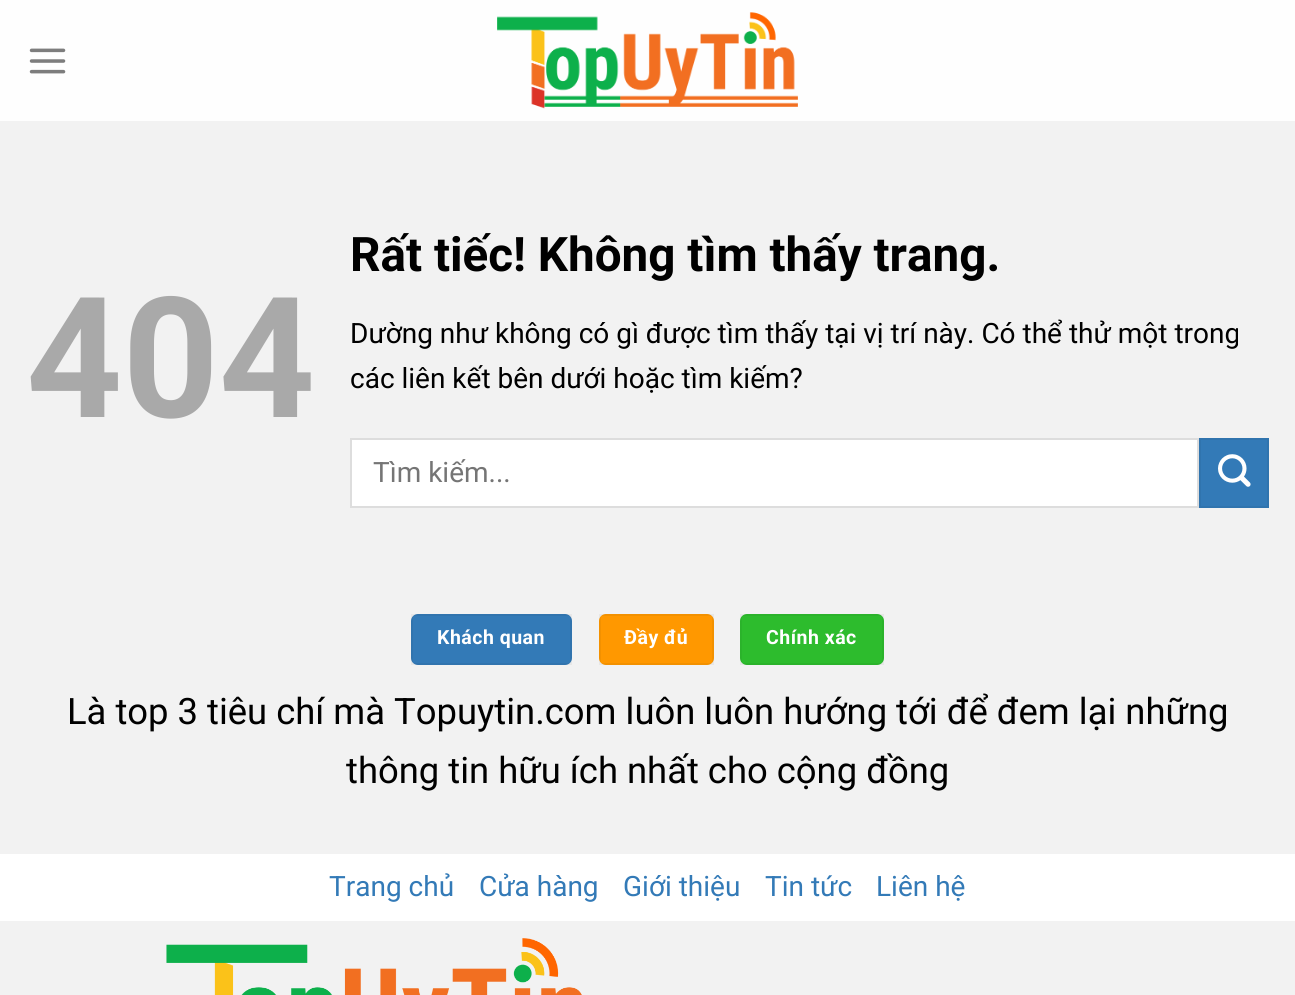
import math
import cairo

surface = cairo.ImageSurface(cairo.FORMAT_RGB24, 1295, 995)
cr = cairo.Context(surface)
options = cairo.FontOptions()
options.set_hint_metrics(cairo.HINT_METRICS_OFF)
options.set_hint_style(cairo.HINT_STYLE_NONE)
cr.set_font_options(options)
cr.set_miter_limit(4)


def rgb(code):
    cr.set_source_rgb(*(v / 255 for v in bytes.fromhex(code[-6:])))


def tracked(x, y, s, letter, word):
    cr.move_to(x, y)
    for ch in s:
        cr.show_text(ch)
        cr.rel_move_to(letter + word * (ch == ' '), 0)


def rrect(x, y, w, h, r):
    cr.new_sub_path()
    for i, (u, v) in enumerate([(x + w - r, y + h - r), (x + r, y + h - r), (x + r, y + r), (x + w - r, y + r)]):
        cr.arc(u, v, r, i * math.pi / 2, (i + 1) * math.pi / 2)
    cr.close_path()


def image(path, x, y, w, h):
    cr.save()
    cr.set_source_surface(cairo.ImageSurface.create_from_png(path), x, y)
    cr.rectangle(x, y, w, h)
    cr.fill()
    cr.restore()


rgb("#f2f2f2")
cr.paint()
rgb("#fefefe")
cr.rectangle(0, 0, 1295, 121)
cr.fill()
image("img/1.png", 29, 48, 37, 26)
image("img/2.png", 497, 12, 301, 97)
rgb("#ffffff")
cr.rectangle(351, 439, 847, 68)
cr.fill_preserve()
rgb("#dddddd")
cr.stroke()
rgb("#337ab7")
cr.rectangle(1200, 439, 68, 68)
cr.fill_preserve()
rgb("#3074ae")
cr.stroke()
image("img/3.png", 1218, 454, 33, 33)
rgb("#337ab7")
rrect(411, 614, 161, 51, 7)
cr.fill()
cr.rectangle(412, 615, 159, 49)
cr.set_source_rgba(0, 0, 0, 0.05)
cr.stroke()
rgb("#ff9800")
rrect(599, 614, 115, 51, 7)
cr.fill()
cr.rectangle(600, 615, 113, 49)
cr.set_source_rgba(0, 0, 0, 0.05)
cr.stroke()
rgb("#2dbc2d")
rrect(740, 614, 144, 51, 7)
cr.fill()
cr.rectangle(741, 615, 142, 49)
cr.set_source_rgba(0, 0, 0, 0.05)
cr.stroke()
rgb("#ffffff")
cr.rectangle(0, 854, 1295, 67)
cr.fill()
image("img/4.png", 166, 938, 416, 57)
cr.select_font_face("Roboto", cairo.FONT_SLANT_NORMAL, cairo.FONT_WEIGHT_BOLD)
cr.set_font_size(168)
rgb("#a9a9a9")
cr.move_to(26, 417)
cr.show_text("404")
cr.set_font_size(47.6)
rgb("#000000")
cr.move_to(350, 271)
cr.show_text("Rất tiếc! Không tìm thấy trang.")
cr.select_font_face("Roboto")
cr.set_font_size(28)
cr.move_to(350, 343)
cr.show_text("Dường như không có gì được tìm thấy tại vị trí này. Có thể thử một trong")
cr.move_to(350, 388)
cr.show_text("các liên kết bên dưới hoặc tìm kiếm?")
rgb("#757575")
cr.move_to(373, 482)
cr.show_text("Tìm kiếm...")
cr.select_font_face("Roboto", cairo.FONT_SLANT_NORMAL, cairo.FONT_WEIGHT_BOLD)
cr.set_font_size(19.5)
rgb("#ffffff")
for x, y, s in [
    (437, 644, "Khách quan"),
    (624, 644, "Đầy đủ"),
    (766, 644, "Chính xác"),
]:
    tracked(x, y, s, 0.5, 0)
cr.select_font_face("Roboto")
cr.set_font_size(36.4)
rgb("#000000")
cr.move_to(67, 724)
cr.show_text("Là top 3 tiêu chí mà Topuytin.com luôn luôn hướng tới để đem lại những")
cr.move_to(346, 783)
cr.show_text("thông tin hữu ích nhất cho cộng đồng")
cr.set_font_size(28)
rgb("#337ab7")
for x, y, s in [
    (329, 896, "Trang chủ"),
    (479, 896, "Cửa hàng"),
    (623, 896, "Giới thiệu"),
    (765, 896, "Tin tức"),
    (876, 896, "Liên hệ"),
]:
    cr.move_to(x, y)
    cr.show_text(s)
surface.write_to_png("page.png")
